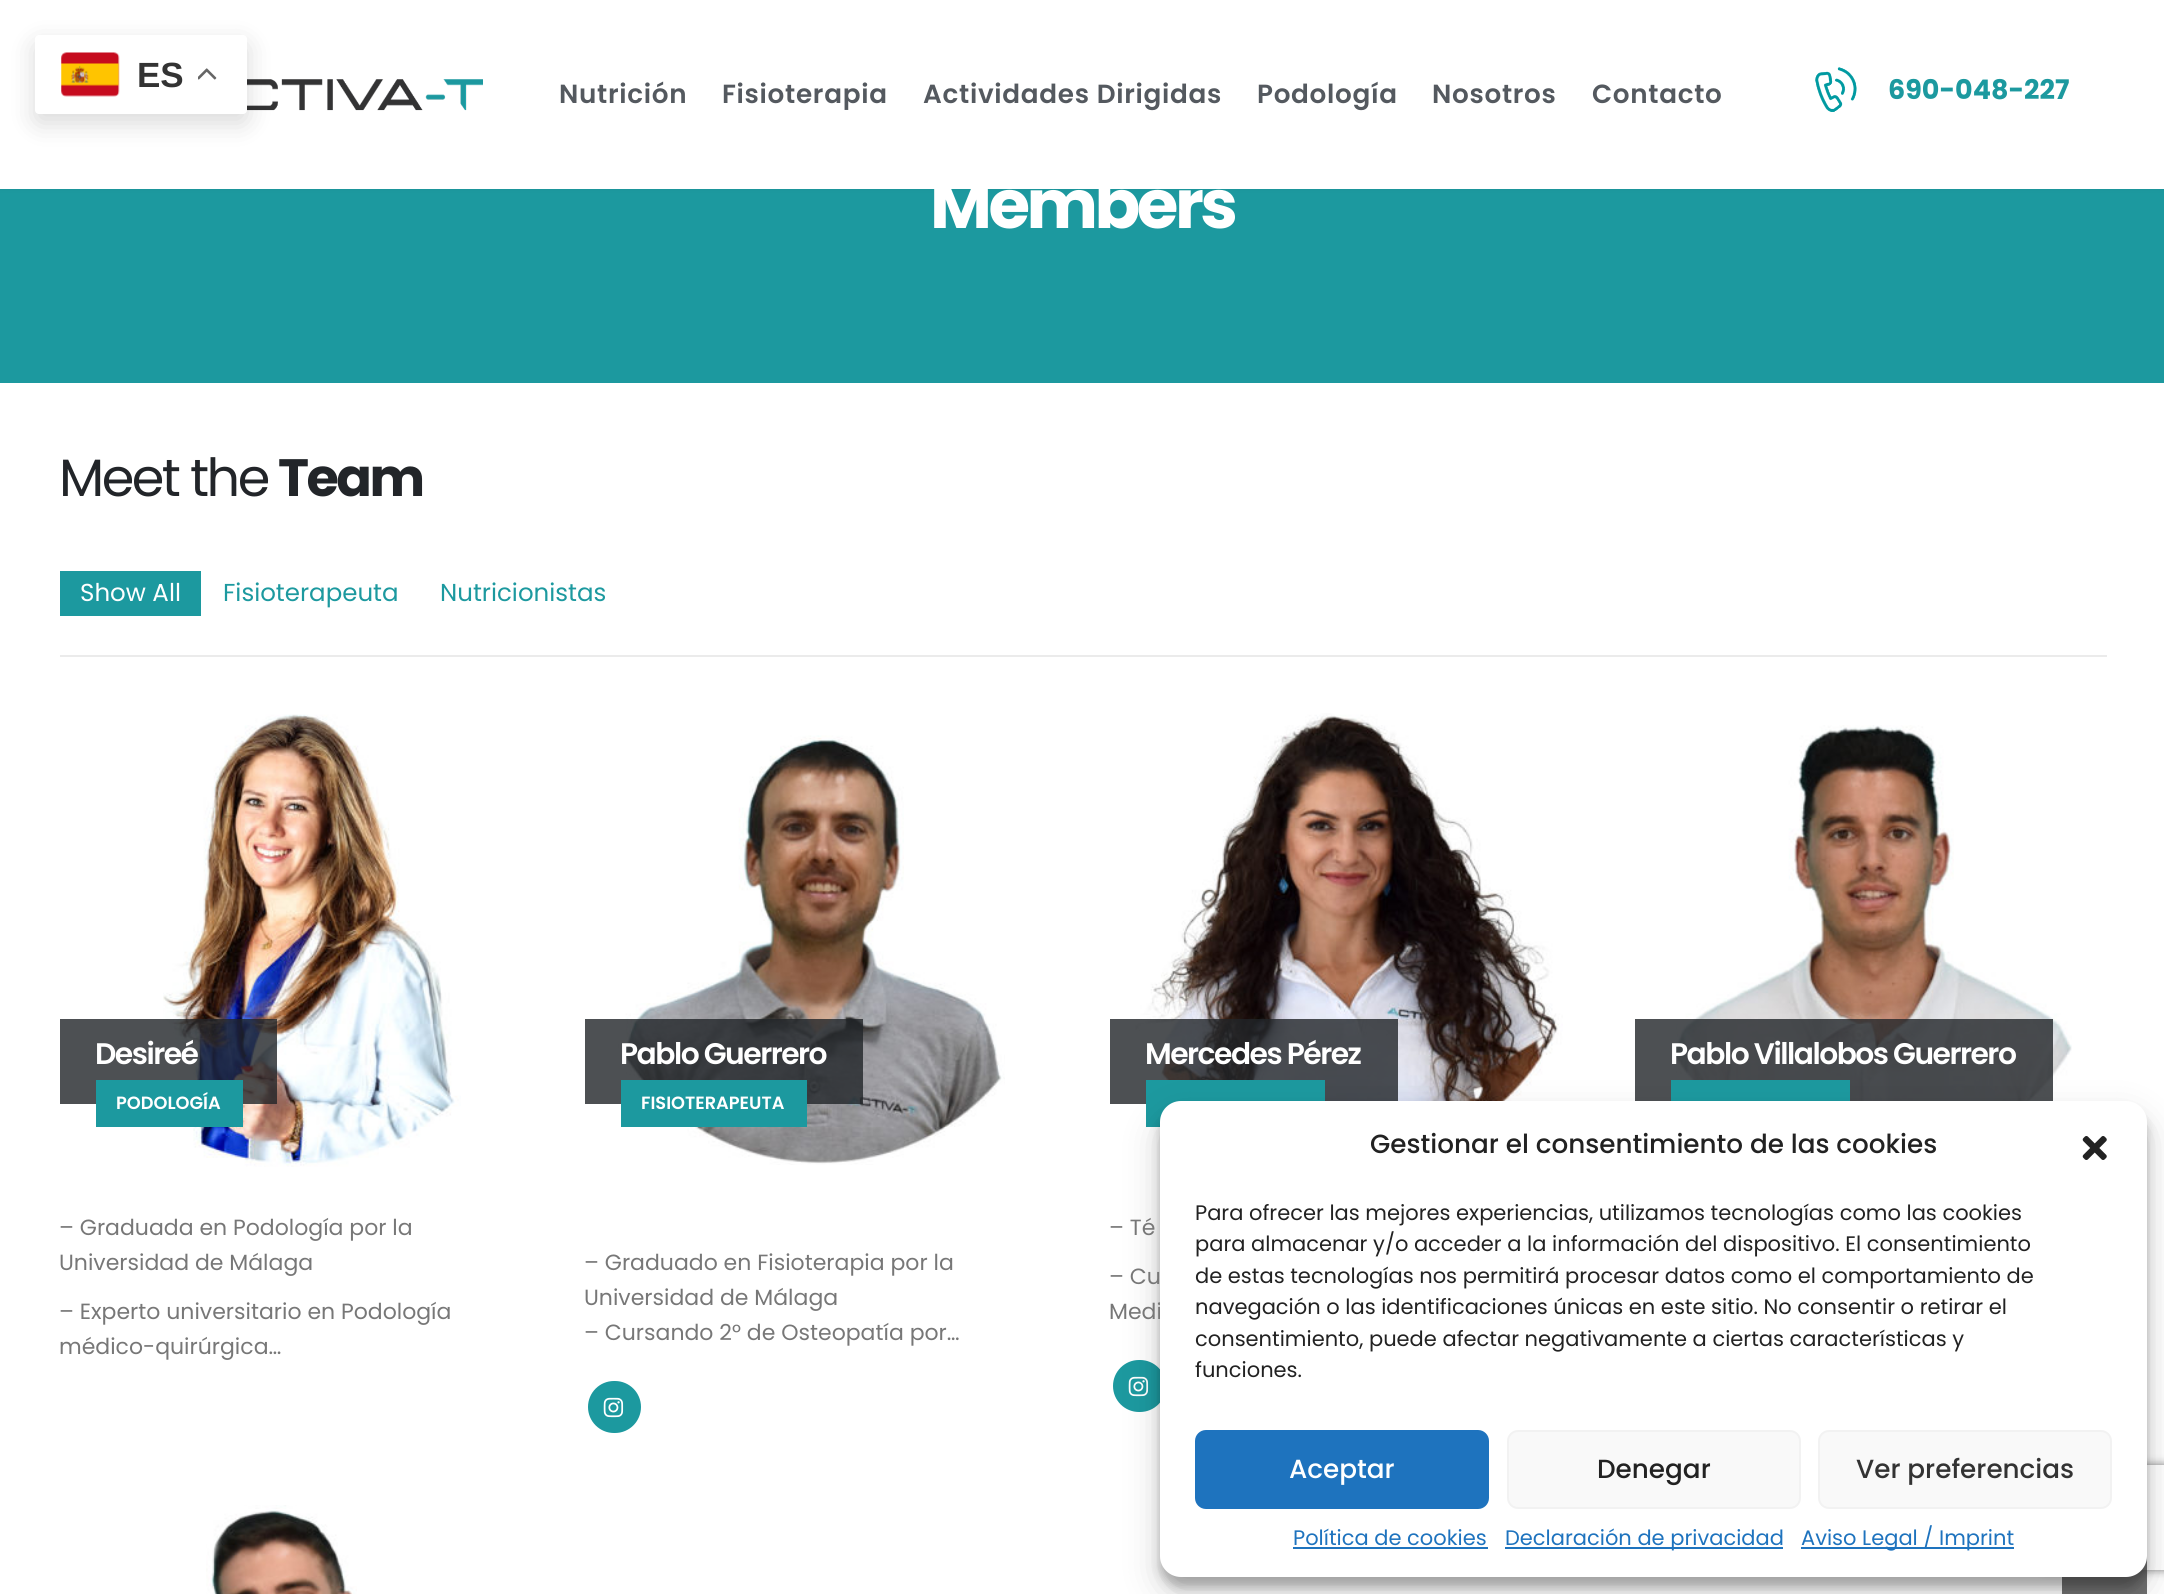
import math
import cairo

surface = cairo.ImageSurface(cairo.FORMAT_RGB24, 2164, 1594)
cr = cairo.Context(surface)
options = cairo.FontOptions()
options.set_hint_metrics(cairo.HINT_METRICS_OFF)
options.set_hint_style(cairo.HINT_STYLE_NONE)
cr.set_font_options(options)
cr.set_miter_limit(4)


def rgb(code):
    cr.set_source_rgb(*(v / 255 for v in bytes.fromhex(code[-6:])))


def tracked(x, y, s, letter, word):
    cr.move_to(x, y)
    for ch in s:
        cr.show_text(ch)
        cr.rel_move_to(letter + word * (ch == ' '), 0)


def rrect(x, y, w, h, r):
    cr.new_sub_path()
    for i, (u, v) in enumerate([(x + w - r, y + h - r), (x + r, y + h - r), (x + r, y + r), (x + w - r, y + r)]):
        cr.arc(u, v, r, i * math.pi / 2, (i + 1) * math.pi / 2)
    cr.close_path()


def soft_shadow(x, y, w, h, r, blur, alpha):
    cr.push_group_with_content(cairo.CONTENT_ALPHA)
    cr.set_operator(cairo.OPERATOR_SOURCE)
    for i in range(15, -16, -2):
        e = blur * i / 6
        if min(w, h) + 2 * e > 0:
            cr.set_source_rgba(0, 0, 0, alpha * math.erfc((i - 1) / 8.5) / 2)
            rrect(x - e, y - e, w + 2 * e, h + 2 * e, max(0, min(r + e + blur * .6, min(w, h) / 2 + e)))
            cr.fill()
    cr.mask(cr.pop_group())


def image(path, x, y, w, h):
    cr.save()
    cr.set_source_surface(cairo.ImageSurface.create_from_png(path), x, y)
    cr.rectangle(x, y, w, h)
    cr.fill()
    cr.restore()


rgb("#ffffff")
cr.paint()
rgb("#1c999f")
cr.rectangle(0, 189, 2164, 194)
cr.fill()
rgb("#000000")
soft_shadow(0, 0, 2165, 189, 0, 2.5, 0.06)
rgb("#ffffff")
cr.rectangle(0, 0, 2164, 189)
cr.fill()
image("img/3.png", 246, 79, 237, 32)
rgb("#000000")
soft_shadow(35, 44, 212, 79, 4, 13, 0.15)
rgb("#ffffff")
rrect(35, 35, 212, 79, 4)
cr.fill()
image("img/1.png", 61, 52, 59, 45)
image("img/2.png", 198, 68, 19, 12)
image("img/4.png", 1815, 67, 42, 45)
rgb("#1c999f")
cr.rectangle(60, 571, 141, 45)
cr.fill()
rgb("#ebebeb")
cr.rectangle(60, 655, 2047, 2)
cr.fill()
image("img/5.png", 163, 714, 298, 453)
cr.set_source_rgba(0.129, 0.145, 0.161, 0.8)
cr.rectangle(60, 1019, 217, 85)
cr.fill()
rgb("#1c999f")
cr.rectangle(96, 1080, 147, 47)
cr.fill()
image("img/6.png", 618, 735, 387, 430)
cr.set_source_rgba(0.129, 0.145, 0.161, 0.8)
cr.rectangle(585, 1019, 278, 85)
cr.fill()
rgb("#1c999f")
cr.rectangle(621, 1080, 186, 47)
cr.fill()
rrect(588, 1381, 53, 52, 26)
cr.fill()
image("img/7.png", 603, 1397, 21, 21)
image("img/8.png", 1135, 713, 428, 453)
cr.set_source_rgba(0.129, 0.145, 0.161, 0.8)
cr.rectangle(1110, 1019, 288, 85)
cr.fill()
rgb("#1c999f")
cr.rectangle(1146, 1080, 179, 47)
cr.fill()
rrect(1113, 1360, 53, 52, 26)
cr.fill()
image("img/7.png", 1128, 1376, 21, 21)
image("img/9.png", 1672, 725, 400, 376)
cr.set_source_rgba(0.129, 0.145, 0.161, 0.8)
cr.rectangle(1635, 1019, 418, 82)
cr.fill()
rgb("#1c999f")
cr.rectangle(1671, 1080, 179, 21)
cr.fill()
image("img/10.png", 206, 1505, 151, 89)
cr.save()
cr.set_fill_rule(cairo.FILL_RULE_EVEN_ODD)
cr.new_path()
cr.move_to(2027, 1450)
cr.line_to(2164, 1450)
cr.line_to(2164, 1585)
cr.line_to(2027, 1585)
cr.close_path()
cr.move_to(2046, 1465)
cr.line_to(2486, 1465)
cr.curve_to(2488, 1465, 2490, 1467, 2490, 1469)
cr.line_to(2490, 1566)
cr.curve_to(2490, 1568, 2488, 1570, 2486, 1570)
cr.line_to(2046, 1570)
cr.curve_to(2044, 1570, 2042, 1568, 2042, 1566)
cr.line_to(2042, 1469)
cr.curve_to(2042, 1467, 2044, 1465, 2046, 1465)
cr.close_path()
cr.clip()
rgb("#808080")
soft_shadow(2042, 1465, 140, 105, 4, 4.5, 1)
cr.restore()
cr.set_source_rgba(0.251, 0.251, 0.251, 0.75)
cr.rectangle(2062, 1556, 85, 38)
cr.fill()
rgb("#000000")
soft_shadow(1160, 1111, 987, 476, 21, 5, 0.23)
soft_shadow(1160, 1118, 987, 476, 21, 17.5, 0.19)
cr.select_font_face("Liberation Sans", cairo.FONT_SLANT_NORMAL, cairo.FONT_WEIGHT_BOLD)
cr.set_font_size(35)
rgb("#333333")
cr.move_to(137, 87)
cr.show_text("ES")
cr.select_font_face("Poppins SemiBold")
cr.set_font_size(26.25)
rgb("#54595f")
for x, y, s in [
    (559, 103, "Nutrición"),
    (722, 103, "Fisioterapia"),
    (923, 103, "Actividades Dirigidas"),
    (1257, 103, "Podología"),
    (1432, 103, "Nosotros"),
    (1592, 103, "Contacto"),
]:
    tracked(x, y, s, 0.7, 0)
cr.select_font_face("Poppins", cairo.FONT_SLANT_NORMAL, cairo.FONT_WEIGHT_BOLD)
cr.set_font_size(27)
rgb("#1c999f")
cr.move_to(1888, 99)
cr.show_text("690-048-227")
cr.set_font_size(67.5)
rgb("#ffffff")
tracked(930, 228, "Members", -3.5, 0)
cr.select_font_face("Poppins")
cr.set_font_size(52.5)
rgb("#222529")
tracked(59, 496, "Meet the", -2.5, 0)
cr.select_font_face("Poppins", cairo.FONT_SLANT_NORMAL, cairo.FONT_WEIGHT_BOLD)
tracked(278, 496, "Team", -2.5, 0)
cr.select_font_face("Poppins")
cr.set_font_size(24.5)
rgb("#ffffff")
cr.move_to(80, 601)
cr.show_text("Show All")
rgb("#1c999f")
cr.move_to(223, 601)
cr.show_text("Fisioterapeuta")
cr.move_to(440, 601)
cr.show_text("Nutricionistas")
cr.select_font_face("Poppins SemiBold")
cr.set_font_size(29.75)
rgb("#ffffff")
tracked(95, 1064, "Desireé", -1.5, 0)
cr.set_font_size(17.75)
cr.move_to(116, 1109)
cr.show_text("PODOLOGÍA")
cr.select_font_face("Poppins")
cr.set_font_size(22)
rgb("#777777")
for x, y, s in [
    (59, 1235, "– Graduada en Podología por la"),
    (59, 1270, "Universidad de Málaga"),
    (59, 1319, "– Experto universitario en Podología"),
    (59, 1354, "médico-quirúrgica…"),
]:
    cr.move_to(x, y)
    cr.show_text(s)
cr.select_font_face("Poppins SemiBold")
cr.set_font_size(29.75)
rgb("#ffffff")
tracked(620, 1064, "Pablo Guerrero", -1.5, 0)
cr.set_font_size(17.75)
cr.move_to(641, 1109)
cr.show_text("FISIOTERAPEUTA")
cr.select_font_face("Poppins")
cr.set_font_size(22)
rgb("#777777")
for x, y, s in [
    (584, 1270, "– Graduado en Fisioterapia por la"),
    (584, 1305, "Universidad de Málaga"),
    (584, 1340, "– Cursando 2° de Osteopatía por…"),
]:
    cr.move_to(x, y)
    cr.show_text(s)
cr.select_font_face("Poppins SemiBold")
cr.set_font_size(29.75)
rgb("#ffffff")
tracked(1145, 1064, "Mercedes Pérez", -1.5, 0)
cr.select_font_face("Poppins")
cr.set_font_size(22)
rgb("#777777")
for x, y, s in [
    (1109, 1235, "– Té"),
    (1109, 1284, "– Cu"),
    (1109, 1319, "Medi"),
]:
    cr.move_to(x, y)
    cr.show_text(s)
cr.select_font_face("Poppins SemiBold")
cr.set_font_size(29.75)
rgb("#ffffff")
tracked(1670, 1064, "Pablo Villalobos Guerrero", -1.5, 0)
rrect(1160, 1101, 987, 476, 21)
cr.fill()
cr.select_font_face("Poppins Medium")
cr.set_font_size(26.25)
rgb("#222222")
cr.move_to(1370, 1153)
cr.show_text("Gestionar el consentimiento de las cookies")
image("img/11.png", 2082, 1136, 25, 24)
cr.select_font_face("Poppins")
cr.set_font_size(21)
for x, y, s in [
    (1195, 1220, "Para ofrecer las mejores experiencias, utilizamos tecnologías como las cookies"),
    (1195, 1251, "para almacenar y/o acceder a la información del dispositivo. El consentimiento"),
    (1195, 1283, "de estas tecnologías nos permitirá procesar datos como el comportamiento de"),
    (1195, 1314, "navegación o las identificaciones únicas en este sitio. No consentir o retirar el"),
    (1195, 1346, "consentimiento, puede afectar negativamente a ciertas características y"),
    (1195, 1377, "funciones."),
]:
    cr.move_to(x, y)
    cr.show_text(s)
rgb("#1e73be")
rrect(1196, 1431, 292, 77, 10)
cr.fill_preserve()
cr.stroke()
cr.select_font_face("Poppins Medium")
cr.set_font_size(26.25)
rgb("#ffffff")
cr.move_to(1289, 1478)
cr.show_text("Aceptar")
rgb("#f9f9f9")
rrect(1508, 1431, 292, 77, 10)
cr.fill_preserve()
rgb("#f2f2f2")
cr.stroke()
rgb("#222222")
cr.move_to(1597, 1478)
cr.show_text("Denegar")
rgb("#f9f9f9")
rrect(1819, 1431, 292, 77, 10)
cr.fill_preserve()
rgb("#f2f2f2")
cr.stroke()
rgb("#333333")
cr.move_to(1856, 1478)
cr.show_text("Ver preferencias")
cr.select_font_face("Poppins")
cr.set_font_size(21)
rgb("#1e73be")
cr.move_to(1293, 1545)
cr.show_text("Política de cookies")
cr.rectangle(1293, 1547, 195, 2)
cr.fill()
cr.rectangle(1505, 1547, 278, 2)
cr.fill()
cr.move_to(1505, 1545)
cr.show_text("Declaración de privacidad")
cr.rectangle(1801, 1547, 213, 2)
cr.fill()
cr.move_to(1801, 1545)
cr.show_text("Aviso Legal / Imprint")
surface.write_to_png("page.png")
